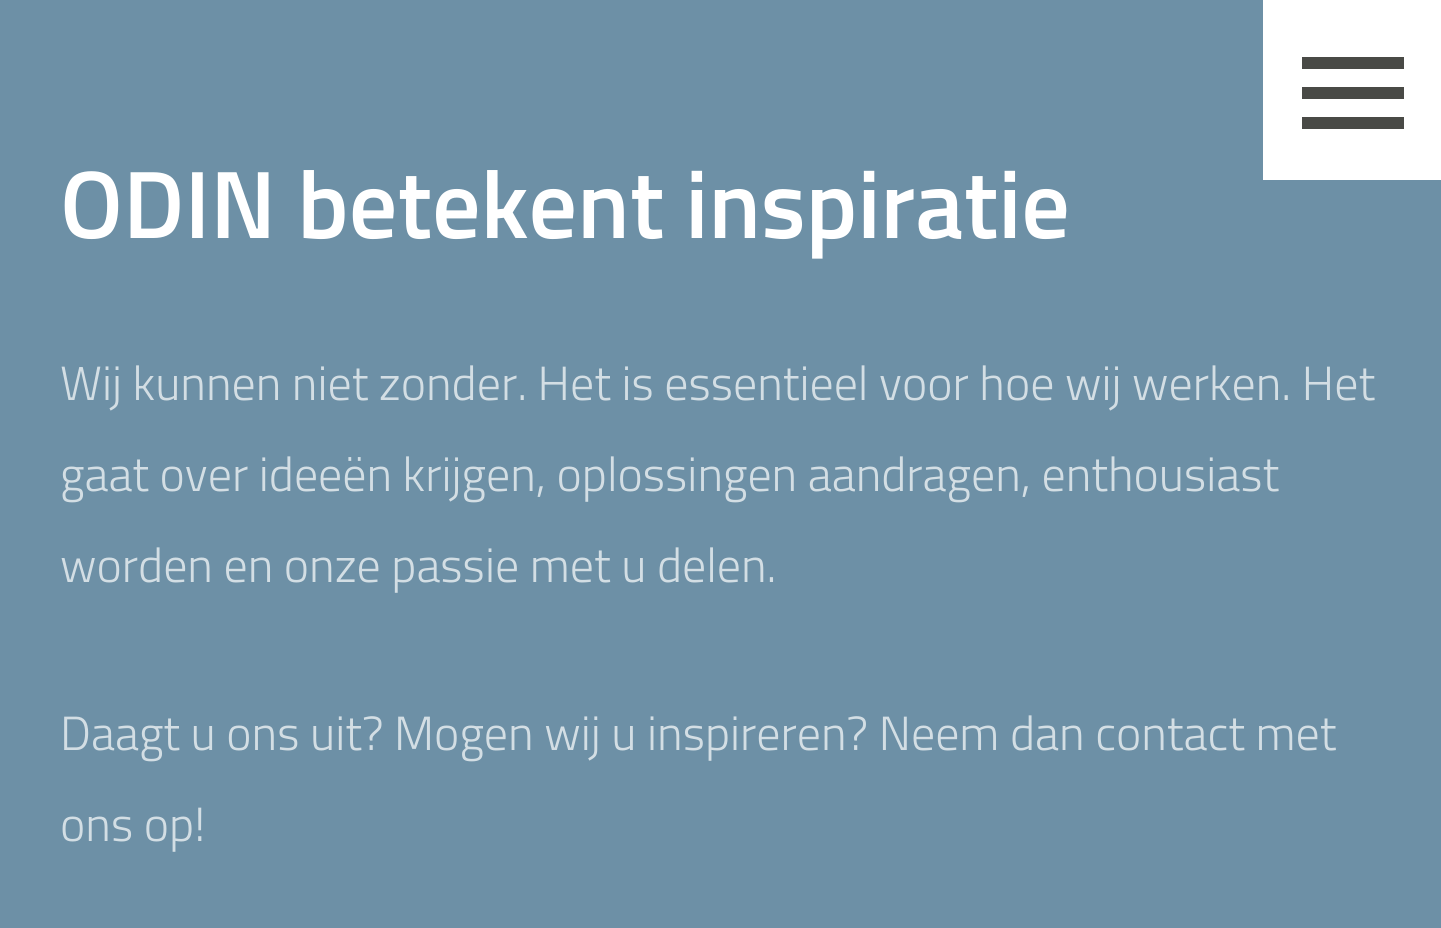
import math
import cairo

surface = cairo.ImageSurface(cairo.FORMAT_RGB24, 1441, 928)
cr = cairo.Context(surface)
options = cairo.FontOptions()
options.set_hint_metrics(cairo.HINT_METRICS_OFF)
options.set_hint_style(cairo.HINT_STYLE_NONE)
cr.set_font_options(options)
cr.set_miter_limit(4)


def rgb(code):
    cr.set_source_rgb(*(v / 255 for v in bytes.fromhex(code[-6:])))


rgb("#6d90a6")
cr.paint()
for x, y, w, h, color in [
    (1263, 0, 178, 180, "#ffffff"),
    (1302, 87, 102, 12, "#494a46"),
    (1302, 57, 102, 12, "#494a46"),
    (1302, 117, 102, 12, "#494a46"),
]:
    rgb(color)
    cr.rectangle(x, y, w, h)
    cr.fill()
cr.select_font_face("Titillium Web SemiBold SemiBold")
cr.set_font_size(96)
rgb("#ffffff")
cr.move_to(60, 238)
cr.show_text("ODIN betekent inspiratie")
cr.select_font_face("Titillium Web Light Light")
cr.set_font_size(48)
rgb("#d3dee4")
for x, y, s in [
    (60, 400, "Wij kunnen niet zonder. Het is essentieel voor hoe wij werken. Het"),
    (60, 491, "gaat over ideeën krijgen, oplossingen aandragen, enthousiast"),
    (60, 582, "worden en onze passie met u delen."),
    (60, 750, "Daagt u ons uit? Mogen wij u inspireren? Neem dan contact met"),
    (60, 841, "ons op!"),
]:
    cr.move_to(x, y)
    cr.show_text(s)
surface.write_to_png("page.png")
